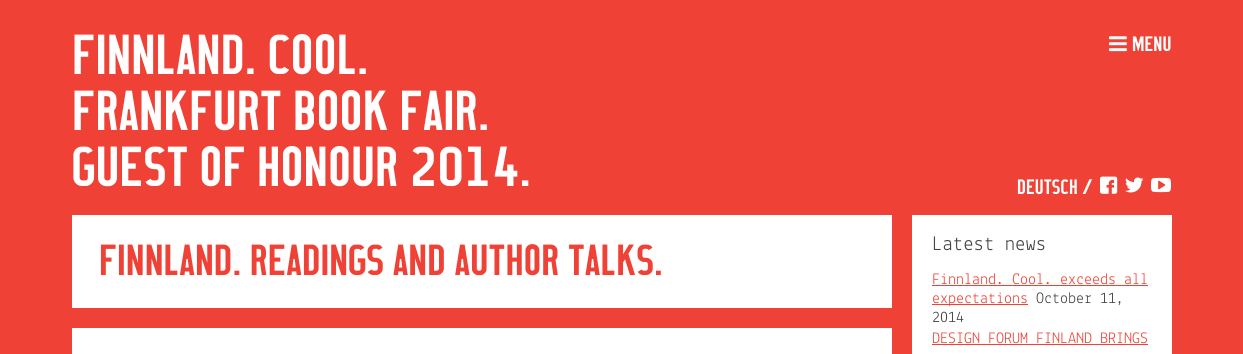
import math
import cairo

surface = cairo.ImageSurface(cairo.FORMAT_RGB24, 1243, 354)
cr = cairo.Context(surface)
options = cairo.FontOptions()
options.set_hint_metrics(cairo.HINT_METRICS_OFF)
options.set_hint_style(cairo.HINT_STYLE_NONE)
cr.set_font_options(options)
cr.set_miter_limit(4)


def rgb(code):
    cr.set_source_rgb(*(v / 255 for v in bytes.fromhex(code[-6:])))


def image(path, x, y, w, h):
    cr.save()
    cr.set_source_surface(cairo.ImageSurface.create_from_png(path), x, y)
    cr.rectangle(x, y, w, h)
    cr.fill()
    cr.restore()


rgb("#ef4135")
cr.paint()
image("img/1.png", 1109, 36, 18, 16)
image("img/2.png", 1100, 176, 18, 18)
image("img/3.png", 1125, 177, 19, 16)
image("img/4.png", 1151, 177, 20, 16)
for x, y, w, h, color in [
    (72, 215, 820, 93, "#ffffff"),
    (72, 328, 820, 26, "#ffffff"),
    (912, 215, 260, 139, "#ffffff"),
    (932, 285, 216, 1, "#ef4135"),
    (932, 304, 96, 1, "#ef4135"),
    (932, 344, 216, 1, "#ef4135"),
]:
    rgb(color)
    cr.rectangle(x, y, w, h)
    cr.fill()
cr.select_font_face("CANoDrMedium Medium")
cr.set_font_size(56)
rgb("#ffffff")
for x, y, s in [
    (72, 74, "FINNLAND. COOL."),
    (72, 130, "FRANKFURT BOOK FAIR."),
    (72, 186, "GUEST OF HONOUR 2014."),
]:
    cr.move_to(x, y)
    cr.show_text(s)
cr.set_font_size(20.75)
cr.move_to(1132, 51)
cr.show_text("MENU")
cr.move_to(1017, 194)
cr.show_text("DEUTSCH /")
cr.set_font_size(43.25)
rgb("#ef4135")
cr.move_to(99, 275)
cr.show_text("FINNLAND. READINGS AND AUTHOR TALKS.")
cr.select_font_face("Lekton")
cr.set_font_size(20.75)
rgb("#444444")
cr.move_to(932, 250)
cr.show_text("Latest news")
cr.set_font_size(16)
rgb("#ef4135")
cr.move_to(932, 284)
cr.show_text("Finnland. Cool. exceeds all")
cr.move_to(932, 303)
cr.show_text("expectations")
rgb("#444444")
cr.move_to(1036, 303)
cr.show_text("October 11,")
cr.move_to(932, 322)
cr.show_text("2014")
rgb("#ef4135")
cr.move_to(932, 343)
cr.show_text("DESIGN FORUM FINLAND BRINGS")
surface.write_to_png("page.png")
